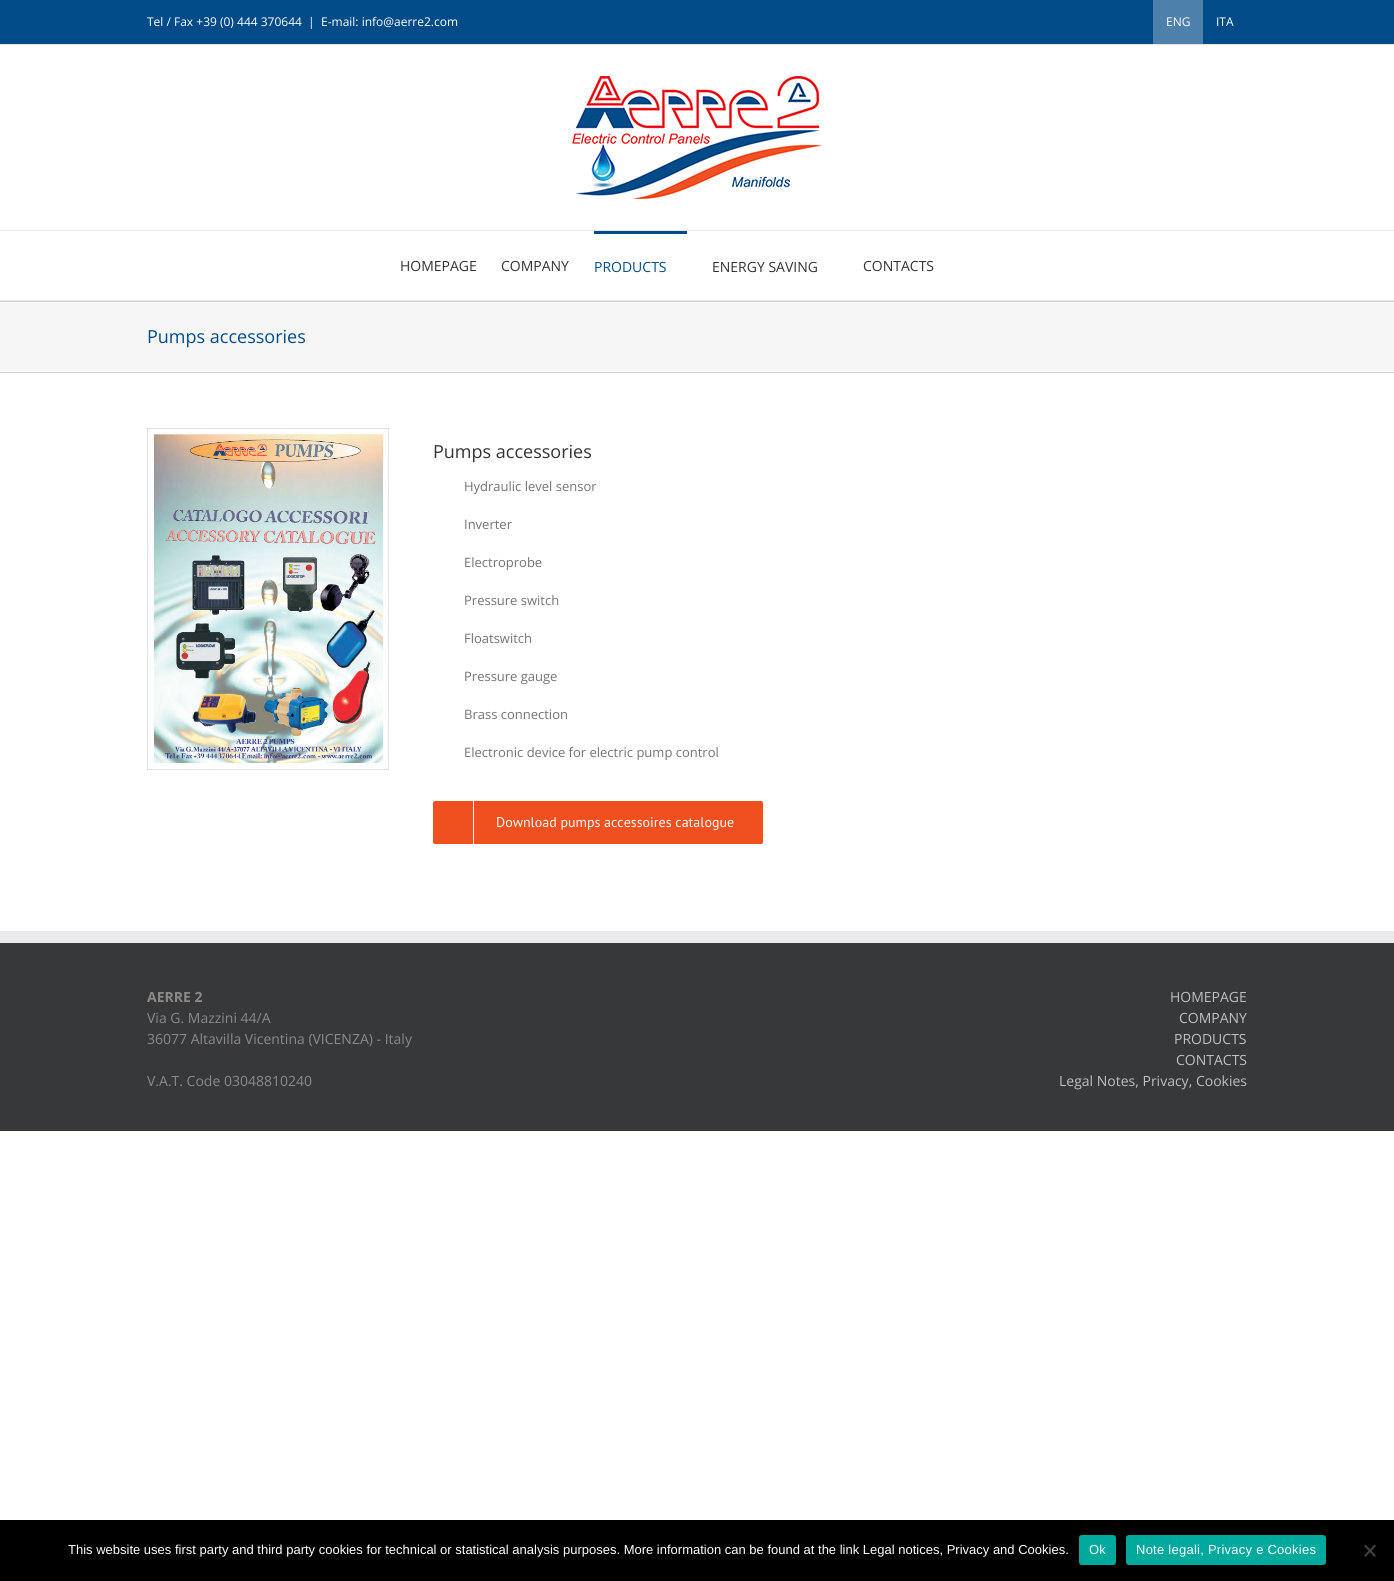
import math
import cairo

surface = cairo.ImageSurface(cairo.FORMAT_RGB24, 1394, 1581)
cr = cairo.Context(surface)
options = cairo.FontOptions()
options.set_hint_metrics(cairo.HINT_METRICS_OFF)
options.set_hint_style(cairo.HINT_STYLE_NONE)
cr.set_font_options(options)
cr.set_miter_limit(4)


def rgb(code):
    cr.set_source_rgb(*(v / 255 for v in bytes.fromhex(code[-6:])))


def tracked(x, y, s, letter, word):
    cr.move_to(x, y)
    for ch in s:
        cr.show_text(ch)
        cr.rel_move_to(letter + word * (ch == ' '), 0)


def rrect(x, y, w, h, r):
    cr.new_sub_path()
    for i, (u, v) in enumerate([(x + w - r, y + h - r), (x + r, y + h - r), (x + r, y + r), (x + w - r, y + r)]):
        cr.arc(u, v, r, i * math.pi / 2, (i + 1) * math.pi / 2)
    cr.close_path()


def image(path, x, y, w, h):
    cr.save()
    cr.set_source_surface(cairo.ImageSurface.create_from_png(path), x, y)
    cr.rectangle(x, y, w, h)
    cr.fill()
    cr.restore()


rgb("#ffffff")
cr.paint()
for x, y, w, h, color in [
    (0, 0, 1394, 44, "#014b88"),
    (0, 44, 1394, 1, "#e5e5e5"),
    (1153, 0, 50, 44, "#4d81ac"),
    (0, 230, 1394, 1, "#e5e5e5"),
]:
    rgb(color)
    cr.rectangle(x, y, w, h)
    cr.fill()
image("img/1.png", 572, 76, 250, 123)
for x, y, w, h, color in [
    (0, 300, 1394, 1, "#e5e5e5"),
    (594, 231, 93, 3, "#014b88"),
    (0, 302, 1394, 70, "#f6f6f6"),
    (0, 301, 1394, 1, "#d2d3d4"),
    (0, 372, 1394, 1, "#d2d3d4"),
]:
    rgb(color)
    cr.rectangle(x, y, w, h)
    cr.fill()
image("img/2.png", 147, 428, 242, 342)
rgb("#f05020")
rrect(433, 801, 330, 43, 2)
cr.fill()
for x, y, w, h, color in [
    (473, 801, 1, 43, "#ffffff"),
    (0, 943, 1394, 188, "#363839"),
    (0, 931, 1394, 12, "#e9eaee"),
    (0, 1520, 1394, 61, "#000000"),
]:
    rgb(color)
    cr.rectangle(x, y, w, h)
    cr.fill()
rgb("#00a99d")
rrect(1079, 1535, 37, 30, 3)
cr.fill()
rrect(1126, 1535, 200, 30, 3)
cr.fill()
rgb("#404040")
cr.new_path()
cr.move_to(1374.5, 1544.5)
cr.line_to(1376, 1546)
cr.line_to(1365.5, 1557)
cr.line_to(1364, 1555.5)
cr.close_path()
cr.fill()
cr.new_path()
cr.move_to(1364, 1546)
cr.line_to(1365.5, 1544.5)
cr.line_to(1376, 1555.5)
cr.line_to(1374.5, 1557)
cr.close_path()
cr.fill()
cr.select_font_face("Open Sans")
cr.set_font_size(12)
rgb("#ffffff")
for x, y, s in [
    (147, 26, "Tel / Fax +39 (0) 444 370644"),
    (308, 26, "|"),
    (321, 26, "E-mail: info@aerre2.com"),
    (1166, 26, "ENG"),
    (1216, 26, "ITA"),
]:
    cr.move_to(x, y)
    cr.show_text(s)
cr.set_font_size(14)
rgb("#333333")
cr.move_to(400, 271)
cr.show_text("HOMEPAGE")
cr.move_to(501, 271)
cr.show_text("COMPANY")
rgb("#014b88")
cr.move_to(594, 272)
cr.show_text("PRODUCTS")
rgb("#333333")
cr.move_to(712, 272)
cr.show_text("ENERGY SAVING")
cr.move_to(863, 271)
cr.show_text("CONTACTS")
cr.set_font_size(18)
rgb("#014b88")
cr.move_to(147, 343)
cr.show_text("Pumps accessories")
rgb("#333333")
cr.move_to(433, 458)
cr.show_text("Pumps accessories")
cr.set_font_size(13)
rgb("#747474")
for x, y, s in [
    (464, 491, "Hydraulic level sensor"),
    (464, 529, "Inverter"),
    (464, 567, "Electroprobe"),
    (464, 605, "Pressure switch"),
    (464, 643, "Floatswitch"),
    (464, 681, "Pressure gauge"),
    (464, 719, "Brass connection"),
    (464, 757, "Electronic device for electric pump control"),
]:
    cr.move_to(x, y)
    cr.show_text(s)
cr.select_font_face("PT Sans")
cr.set_font_size(14)
rgb("#ffffff")
cr.move_to(496, 827)
cr.show_text("Download pumps accessoires catalogue")
cr.select_font_face("Open Sans", cairo.FONT_SLANT_NORMAL, cairo.FONT_WEIGHT_BOLD)
rgb("#8c8989")
cr.move_to(147, 1002)
cr.show_text("AERRE 2")
cr.select_font_face("Open Sans")
for x, y, s in [
    (147, 1023, "Via G. Mazzini 44/A"),
    (147, 1044, "36077 Altavilla Vicentina (VICENZA) - Italy"),
    (147, 1086, "V.A.T. Code 03048810240"),
]:
    cr.move_to(x, y)
    cr.show_text(s)
rgb("#bfbfbf")
for x, y, s in [
    (1170, 1002, "HOMEPAGE"),
    (1179, 1023, "COMPANY"),
    (1174, 1044, "PRODUCTS"),
    (1176, 1065, "CONTACTS"),
    (1059, 1086, "Legal Notes, Privacy, Cookies"),
]:
    cr.move_to(x, y)
    cr.show_text(s)
cr.select_font_face("Liberation Sans")
cr.set_font_size(13)
rgb("#ffffff")
cr.move_to(68, 1554)
cr.show_text("This website uses first party and third party cookies for technical or statistical analysis purposes. More information can be found at the link Legal notices, Privacy and Cookies.")
tracked(1089, 1554, "Ok", 0.25, 0)
tracked(1136, 1554, "Note legali, Privacy e Cookies", 0.25, 0)
surface.write_to_png("page.png")
